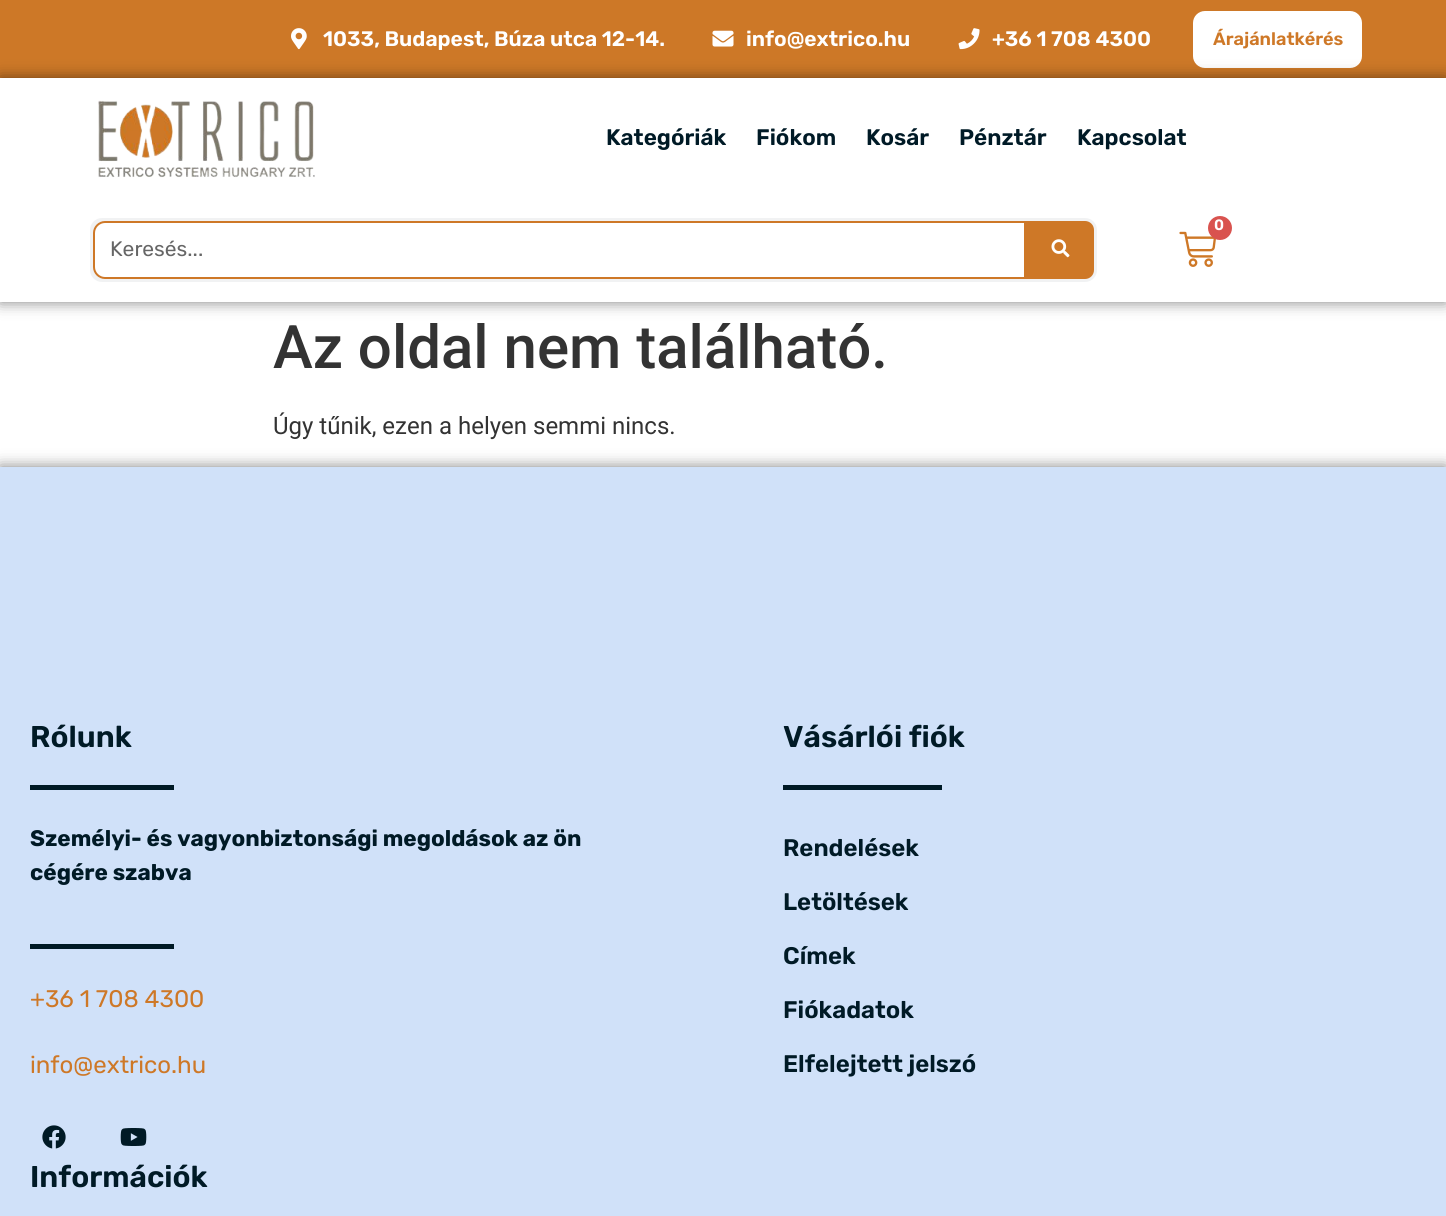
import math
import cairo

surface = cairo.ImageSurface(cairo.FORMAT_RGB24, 1446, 1216)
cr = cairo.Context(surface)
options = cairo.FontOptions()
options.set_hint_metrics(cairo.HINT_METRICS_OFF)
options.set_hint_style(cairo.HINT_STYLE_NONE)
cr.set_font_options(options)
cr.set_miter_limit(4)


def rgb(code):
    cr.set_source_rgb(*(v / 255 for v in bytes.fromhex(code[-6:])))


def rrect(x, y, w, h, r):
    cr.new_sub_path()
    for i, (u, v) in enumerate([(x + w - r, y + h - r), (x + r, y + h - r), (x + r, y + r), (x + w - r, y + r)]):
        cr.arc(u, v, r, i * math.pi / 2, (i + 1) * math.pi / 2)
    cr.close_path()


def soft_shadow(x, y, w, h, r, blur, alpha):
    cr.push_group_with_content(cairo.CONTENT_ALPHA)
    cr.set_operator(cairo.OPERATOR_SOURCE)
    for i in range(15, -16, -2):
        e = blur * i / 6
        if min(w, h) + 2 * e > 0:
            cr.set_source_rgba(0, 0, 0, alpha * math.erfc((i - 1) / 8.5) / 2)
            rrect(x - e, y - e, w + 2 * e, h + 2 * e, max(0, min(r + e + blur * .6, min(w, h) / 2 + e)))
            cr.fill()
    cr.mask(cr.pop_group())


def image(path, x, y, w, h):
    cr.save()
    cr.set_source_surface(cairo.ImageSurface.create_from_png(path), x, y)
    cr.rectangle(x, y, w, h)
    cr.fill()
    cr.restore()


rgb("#ffffff")
cr.paint()
rgb("#cd7827")
cr.rectangle(0, 0, 1446, 78)
cr.fill()
image("img/1.png", 291, 28, 16, 22)
image("img/2.png", 712, 30, 22, 17)
image("img/3.png", 958, 28, 22, 22)
rgb("#ffffff")
rrect(1193, 11, 169, 57, 12)
cr.fill()
rgb("#000000")
soft_shadow(0, 78, 1446, 224, 0, 7.5, 0.5)
rgb("#ffffff")
cr.rectangle(0, 78, 1446, 224)
cr.fill()
image("img/4.png", 98, 100, 217, 78)
image("img/5.png", 1179, 231, 37, 36)
rgb("#d9534f")
cr.arc(1220, 228, 12, 0, 2 * math.pi)
cr.fill()
rgb("#f1f2f3")
rrect(90, 218, 1007, 64, 12)
cr.fill()
rgb("#ffffff")
cr.new_path()
cr.move_to(105, 222)
cr.line_to(1025, 222)
cr.line_to(1025, 278)
cr.line_to(105, 278)
cr.curve_to(99, 278, 94, 273, 94, 267)
cr.line_to(94, 233)
cr.curve_to(94, 227, 99, 222, 105, 222)
cr.close_path()
cr.fill_preserve()
rgb("#ce7827")
cr.stroke()
cr.new_path()
cr.move_to(1026, 221)
cr.line_to(1085, 221)
cr.curve_to(1090, 221, 1094, 225, 1094, 230)
cr.line_to(1094, 270)
cr.curve_to(1094, 275, 1090, 279, 1085, 279)
cr.line_to(1026, 279)
cr.close_path()
cr.fill()
image("img/6.png", 1051, 239, 19, 19)
rgb("#000000")
soft_shadow(0, 467, 1446, 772, 0, 7.5, 0.5)
for x, y, w, h, color in [
    (0, 467, 1446, 749, "#d0e1f9"),
    (30, 785, 144, 5, "#001a26"),
    (30, 944, 144, 5, "#001a26"),
]:
    rgb(color)
    cr.rectangle(x, y, w, h)
    cr.fill()
image("img/7.png", 42, 1125, 24, 24)
image("img/8.png", 120, 1128, 27, 18)
cr.rectangle(783, 785, 159, 5)
cr.fill()
cr.select_font_face("Rubik SemiBold")
cr.set_font_size(21)
rgb("#ffffff")
for x, y, s in [
    (323, 46, "1033, Budapest, Búza utca 12-14."),
    (746, 46, "info@extrico.hu"),
    (992, 46, "+36 1 708 4300"),
]:
    cr.move_to(x, y)
    cr.show_text(s)
cr.set_font_size(18)
rgb("#ce7827")
cr.move_to(1213, 45)
cr.show_text("Árajánlatkérés")
cr.set_font_size(22.5)
rgb("#001a26")
for x, y, s in [
    (606, 145, "Kategóriák"),
    (756, 145, "Fiókom"),
    (866, 145, "Kosár"),
    (959, 145, "Pénztár"),
    (1077, 145, "Kapcsolat"),
]:
    cr.move_to(x, y)
    cr.show_text(s)
cr.set_font_size(15)
rgb("#ffffff")
cr.move_to(1214, 230)
cr.show_text("0")
cr.select_font_face("Rubik")
cr.set_font_size(21)
rgb("#666666")
cr.move_to(110, 256)
cr.show_text("Keresés...")
cr.select_font_face("Roboto Medium")
cr.set_font_size(60)
rgb("#333333")
cr.move_to(273, 368)
cr.show_text("Az oldal nem található.")
cr.select_font_face("Roboto")
cr.set_font_size(24)
cr.move_to(273, 434)
cr.show_text("Úgy tűnik, ezen a helyen semmi nincs.")
cr.select_font_face("Rubik SemiBold")
cr.set_font_size(30)
rgb("#001a26")
cr.move_to(30, 747)
cr.show_text("Rólunk")
cr.select_font_face("Rubik", cairo.FONT_SLANT_NORMAL, cairo.FONT_WEIGHT_BOLD)
cr.set_font_size(22.5)
cr.move_to(30, 846)
cr.show_text("Személyi- és vagyonbiztonsági megoldások az ön")
cr.move_to(30, 880)
cr.show_text("cégére szabva")
cr.select_font_face("Rubik")
cr.set_font_size(24)
rgb("#ce7827")
cr.move_to(30, 1007)
cr.show_text("+36 1 708 4300")
cr.move_to(30, 1073)
cr.show_text("info@extrico.hu")
cr.select_font_face("Rubik SemiBold")
cr.set_font_size(30)
rgb("#001a26")
cr.move_to(783, 747)
cr.show_text("Vásárlói fiók")
cr.set_font_size(24)
for x, y, s in [
    (783, 856, "Rendelések"),
    (783, 910, "Letöltések"),
    (783, 964, "Címek"),
    (783, 1018, "Fiókadatok"),
    (783, 1072, "Elfelejtett jelszó"),
]:
    cr.move_to(x, y)
    cr.show_text(s)
cr.set_font_size(30)
cr.move_to(30, 1187)
cr.show_text("Információk")
surface.write_to_png("page.png")
